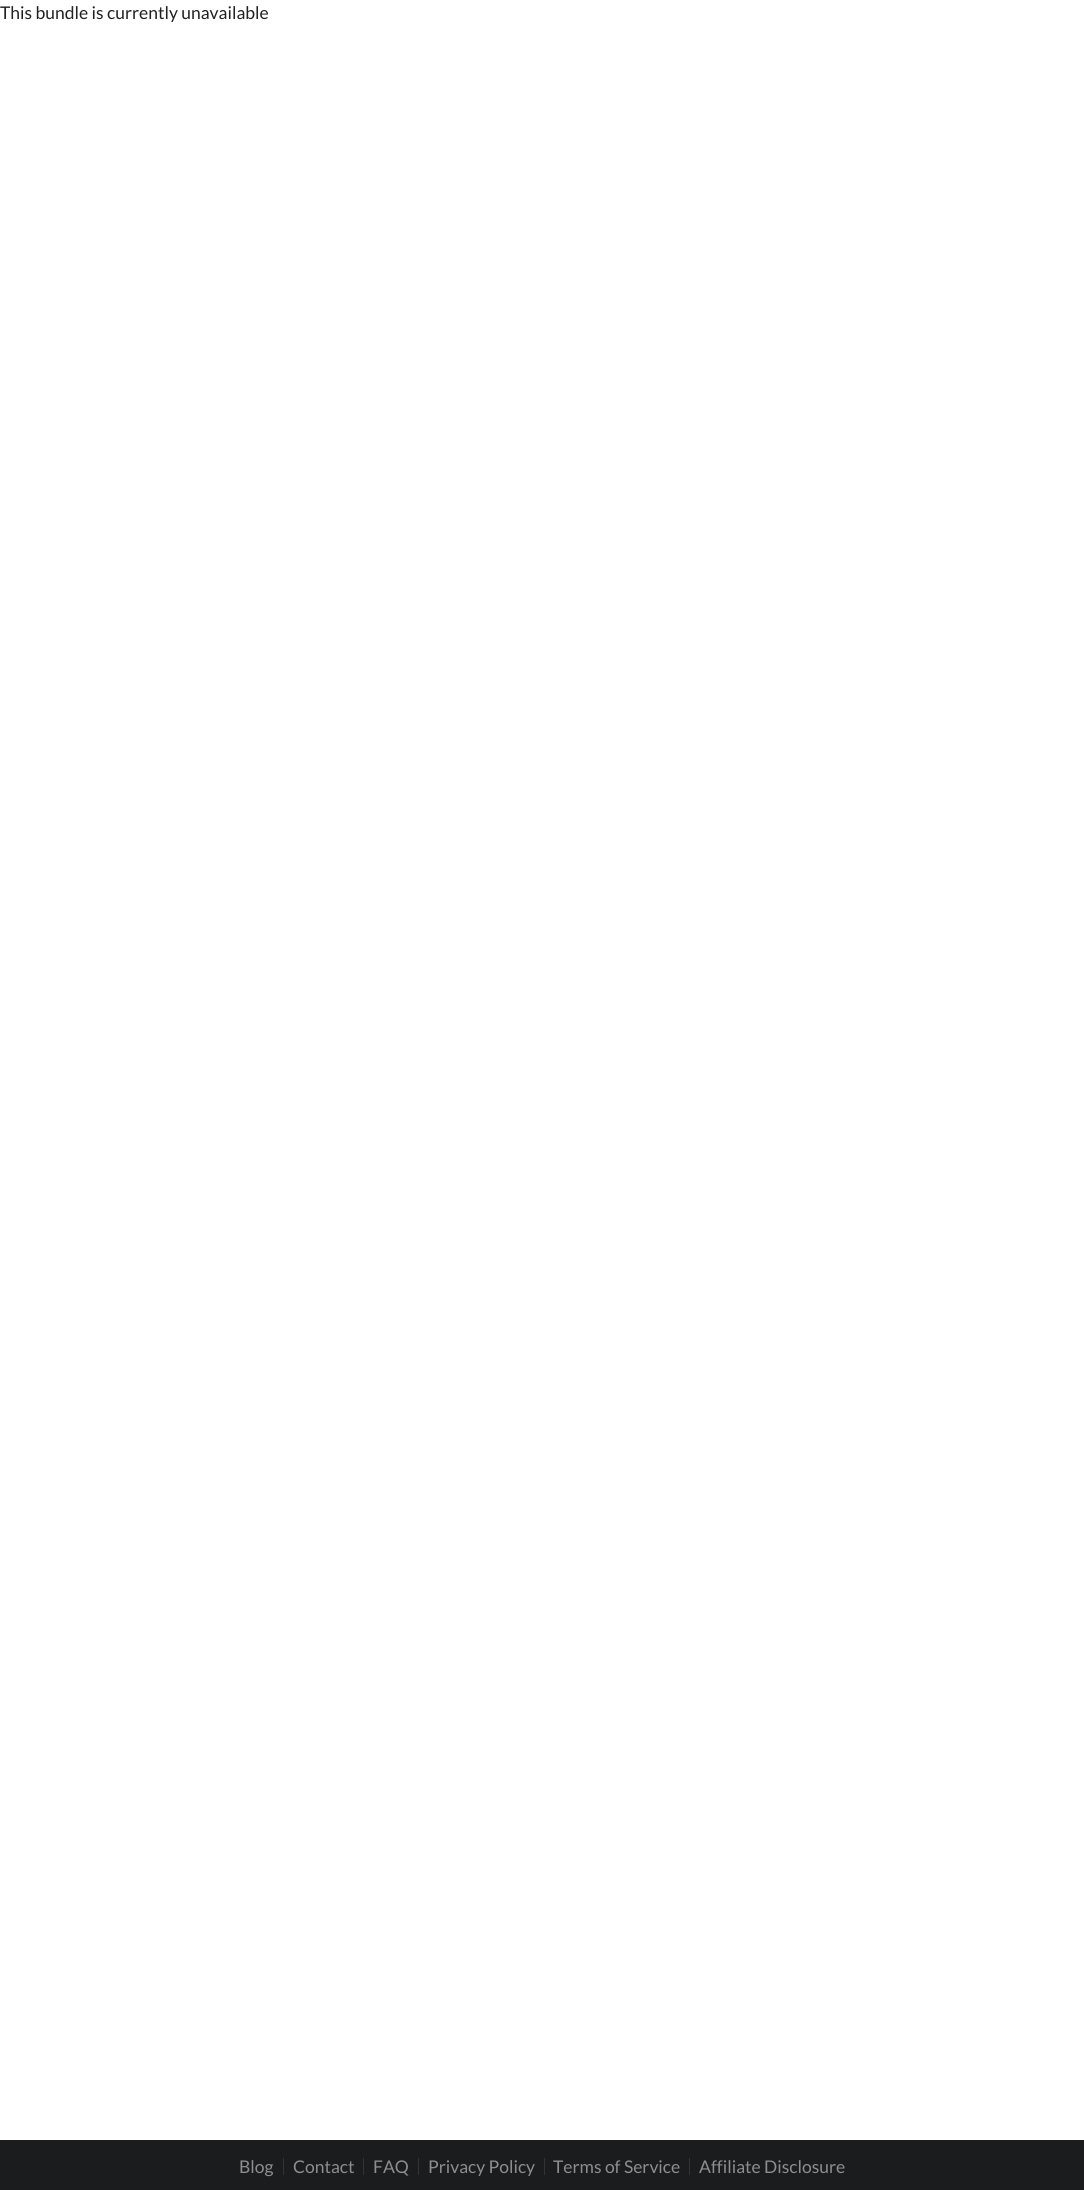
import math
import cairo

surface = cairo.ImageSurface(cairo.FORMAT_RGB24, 1084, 2190)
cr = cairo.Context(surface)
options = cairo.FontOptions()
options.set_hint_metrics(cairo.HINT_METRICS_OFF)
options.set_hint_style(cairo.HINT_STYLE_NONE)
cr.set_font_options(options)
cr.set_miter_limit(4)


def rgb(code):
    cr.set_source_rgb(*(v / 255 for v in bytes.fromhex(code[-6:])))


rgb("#ffffff")
cr.paint()
for x, y, w, h, color in [
    (0, 2140, 1084, 50, "#1b1c1d"),
    (283, 2158, 1, 17, "#323334"),
    (363, 2158, 1, 17, "#323334"),
    (418, 2158, 1, 17, "#323334"),
    (544, 2158, 1, 17, "#323334"),
    (689, 2158, 1, 17, "#323334"),
]:
    rgb(color)
    cr.rectangle(x, y, w, h)
    cr.fill()
cr.select_font_face("Lato")
cr.set_font_size(17.5)
rgb("#212121")
cr.move_to(0, 19)
cr.show_text("This bundle is currently unavailable")
rgb("#8d8e8e")
for x, y, s in [
    (239, 2173, "Blog"),
    (293, 2173, "Contact"),
    (373, 2173, "FAQ"),
    (428, 2173, "Privacy Policy"),
    (553, 2173, "Terms of Service"),
    (699, 2173, "Affiliate Disclosure"),
]:
    cr.move_to(x, y)
    cr.show_text(s)
surface.write_to_png("page.png")
